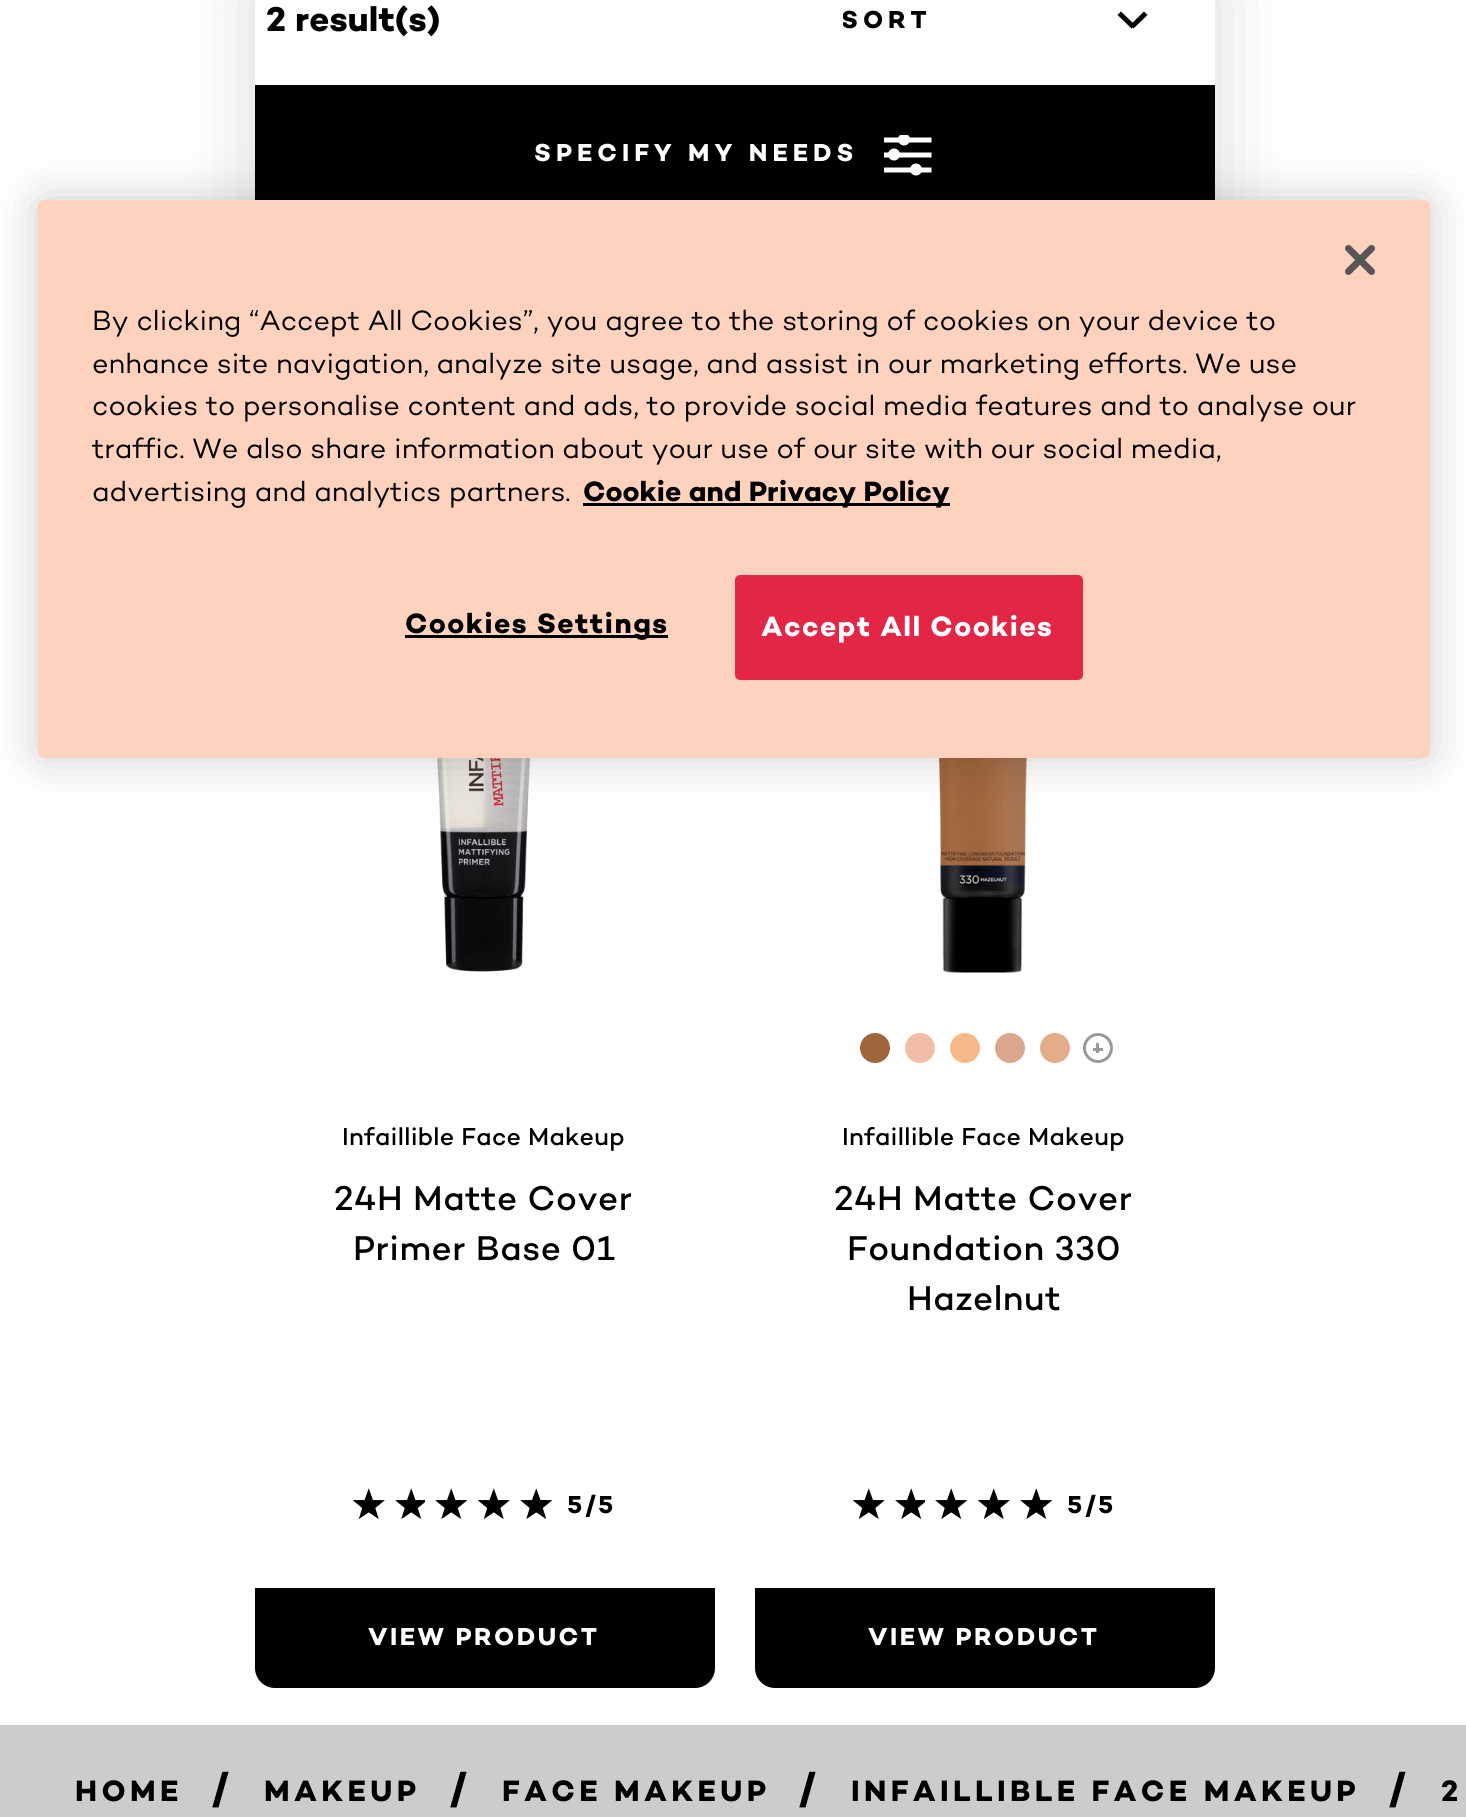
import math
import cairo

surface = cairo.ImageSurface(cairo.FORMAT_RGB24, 1466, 1817)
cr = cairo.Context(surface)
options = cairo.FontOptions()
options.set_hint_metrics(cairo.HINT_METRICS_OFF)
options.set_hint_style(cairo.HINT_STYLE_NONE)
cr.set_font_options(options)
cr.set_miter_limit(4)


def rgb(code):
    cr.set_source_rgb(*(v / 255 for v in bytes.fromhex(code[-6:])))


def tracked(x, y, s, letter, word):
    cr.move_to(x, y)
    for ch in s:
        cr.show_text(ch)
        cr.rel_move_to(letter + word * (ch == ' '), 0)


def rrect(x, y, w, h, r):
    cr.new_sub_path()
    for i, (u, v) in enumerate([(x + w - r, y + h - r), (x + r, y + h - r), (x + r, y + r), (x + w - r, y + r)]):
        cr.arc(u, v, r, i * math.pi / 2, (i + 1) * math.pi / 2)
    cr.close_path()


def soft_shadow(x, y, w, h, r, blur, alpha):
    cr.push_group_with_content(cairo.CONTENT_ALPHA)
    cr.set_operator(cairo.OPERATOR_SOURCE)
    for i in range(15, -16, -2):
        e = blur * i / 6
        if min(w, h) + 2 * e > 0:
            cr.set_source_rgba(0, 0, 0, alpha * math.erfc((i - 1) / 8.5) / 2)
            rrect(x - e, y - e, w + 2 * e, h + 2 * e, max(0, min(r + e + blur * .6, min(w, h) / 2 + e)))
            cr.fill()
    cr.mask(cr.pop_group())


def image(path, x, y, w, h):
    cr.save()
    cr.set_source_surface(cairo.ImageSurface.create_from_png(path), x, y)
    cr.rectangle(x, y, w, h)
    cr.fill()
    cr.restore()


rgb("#ffffff")
cr.paint()
cr.save()
cr.set_fill_rule(cairo.FILL_RULE_EVEN_ODD)
cr.new_path()
cr.move_to(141, 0)
cr.line_to(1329, 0)
cr.line_to(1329, 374)
cr.line_to(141, 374)
cr.close_path()
cr.move_to(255, -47)
cr.line_to(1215, -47)
cr.line_to(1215, 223)
cr.line_to(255, 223)
cr.close_path()
cr.clip()
rgb("#000000")
soft_shadow(255, -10, 960, 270, 0, 37.5, 0.15)
cr.restore()
rgb("#000000")
cr.new_path()
cr.move_to(1130, 25)
cr.line_to(1144, 11.5)
cr.line_to(1147.5, 15)
cr.line_to(1133.5, 28.5)
cr.close_path()
cr.fill()
cr.new_path()
cr.move_to(1121, 11.5)
cr.line_to(1135, 25)
cr.line_to(1131.5, 28.5)
cr.line_to(1117.5, 15)
cr.close_path()
cr.fill()
cr.rectangle(255, 85, 960, 115)
cr.fill()
cr.new_path()
cr.move_to(886.5, 140)
cr.line_to(929, 140)
cr.move_to(886.5, 155)
cr.line_to(929, 155)
cr.move_to(886.5, 170)
cr.line_to(929, 170)
rgb("#ffffff")
cr.set_line_width(5)
cr.set_line_cap(cairo.LINE_CAP_SQUARE)
cr.stroke()
cr.save()
cr.rectangle(883, 135, 50, 41)
cr.clip()
cr.arc(904, 139.5, 6, 0, 2 * math.pi)
cr.fill()
cr.restore()
cr.arc(894, 154.5, 6, 0, 2 * math.pi)
cr.fill()
cr.arc(916, 169.5, 6, 0, 2 * math.pi)
cr.fill()
image("img/1.png", 437, 758, 94, 214)
image("img/2.png", 353, 1488, 32, 31)
image("img/3.png", 395, 1488, 30, 31)
image("img/4.png", 435, 1488, 33, 31)
image("img/2.png", 478, 1488, 32, 31)
image("img/4.png", 520, 1488, 33, 31)
rgb("#000000")
cr.new_path()
cr.move_to(255, 1588)
cr.line_to(715, 1588)
cr.line_to(715, 1668)
cr.curve_to(715, 1679, 706, 1688, 695, 1688)
cr.line_to(275, 1688)
cr.curve_to(264, 1688, 255, 1679, 255, 1668)
cr.close_path()
cr.fill()
image("img/5.png", 938, 758, 90, 215)
rgb("#9f653f")
cr.arc(875, 1048, 15, 0, 2 * math.pi)
cr.fill()
rgb("#f1bda6")
cr.arc(920, 1048, 15, 0, 2 * math.pi)
cr.fill()
rgb("#f6ba8a")
cr.arc(965, 1048, 15, 0, 2 * math.pi)
cr.fill()
rgb("#daa68e")
cr.arc(1010, 1048, 15, 0, 2 * math.pi)
cr.fill()
rgb("#e3ad8b")
cr.arc(1055, 1048, 15, 0, 2 * math.pi)
cr.fill()
cr.arc(1098, 1048, 13.5, 0, 2 * math.pi)
rgb("#969a9c")
cr.set_line_width(3)
cr.set_line_cap(cairo.LINE_CAP_BUTT)
cr.stroke()
cr.rectangle(1093, 1048, 10, 3)
cr.fill()
cr.rectangle(1096, 1043, 3, 10)
cr.fill()
image("img/2.png", 853, 1488, 32, 31)
image("img/3.png", 895, 1488, 30, 31)
image("img/4.png", 935, 1488, 33, 31)
image("img/2.png", 978, 1488, 32, 31)
image("img/4.png", 1020, 1488, 33, 31)
rgb("#000000")
cr.new_path()
cr.move_to(755, 1588)
cr.line_to(1215, 1588)
cr.line_to(1215, 1668)
cr.curve_to(1215, 1679, 1206, 1688, 1195, 1688)
cr.line_to(775, 1688)
cr.curve_to(764, 1688, 755, 1679, 755, 1668)
cr.close_path()
cr.fill()
rgb("#cbcccd")
cr.rectangle(0, 1725, 1466, 92)
cr.fill()
rgb("#000000")
soft_shadow(38, 200, 1392, 558, 6, 22.5, 0.2)
rgb("#ffd2bd")
rrect(38, 200, 1392, 558, 6)
cr.fill()
image("img/6.png", 1345, 245, 30, 30)
rgb("#000000")
cr.rectangle(583, 503, 367, 3)
cr.fill()
cr.rectangle(405, 635, 263, 3)
cr.fill()
rgb("#e32646")
rrect(736.5, 576.5, 345, 102, 3.5)
cr.fill_preserve()
cr.stroke()
cr.select_font_face("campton", cairo.FONT_SLANT_NORMAL, cairo.FONT_WEIGHT_BOLD)
cr.set_font_size(35)
rgb("#000000")
cr.move_to(266, 31)
cr.show_text("2 result(s)")
cr.save()
cr.rectangle(843, 5, 265, 30)
cr.clip()
cr.set_font_size(25)
tracked(841, 28, "SORT", 5, 0)
cr.restore()
cr.set_font_size(25)
rgb("#ffffff")
tracked(534, 161, "SPECIFY MY NEEDS", 5, 0)
cr.select_font_face("campton Medium")
rgb("#000000")
tracked(342, 1145, "Infaillible Face Makeup", 0.25, 0)
cr.set_font_size(35)
tracked(334, 1210, "24H Matte Cover", 0.5, 0)
tracked(353, 1260, "Primer Base 01", 0.5, 0)
cr.select_font_face("campton", cairo.FONT_SLANT_NORMAL, cairo.FONT_WEIGHT_BOLD)
cr.set_font_size(25)
tracked(567, 1513, "5/5", 2.5, 0)
rgb("#ffffff")
tracked(368, 1645, "VIEW PRODUCT", 2.5, 0)
cr.select_font_face("campton Medium")
rgb("#000000")
tracked(842, 1145, "Infaillible Face Makeup", 0.25, 0)
cr.set_font_size(35)
for x, y, s in [
    (834, 1210, "24H Matte Cover"),
    (847, 1260, "Foundation 330"),
    (907, 1310, "Hazelnut"),
]:
    tracked(x, y, s, 0.5, 0)
cr.select_font_face("campton", cairo.FONT_SLANT_NORMAL, cairo.FONT_WEIGHT_BOLD)
cr.set_font_size(25)
tracked(1067, 1513, "5/5", 2.5, 0)
rgb("#ffffff")
tracked(868, 1645, "VIEW PRODUCT", 2.5, 0)
cr.set_font_size(30)
rgb("#000000")
tracked(75, 1801, "HOME", 4.4, 0)
cr.set_font_size(40)
cr.move_to(211, 1801)
cr.show_text("/")
cr.set_font_size(30)
tracked(264, 1801, "MAKEUP", 4.4, 0)
cr.set_font_size(40)
cr.move_to(449, 1801)
cr.show_text("/")
cr.set_font_size(30)
tracked(502, 1801, "FACE MAKEUP", 4.4, 0)
cr.set_font_size(40)
cr.move_to(798, 1801)
cr.show_text("/")
cr.set_font_size(30)
tracked(851, 1801, "INFAILLIBLE FACE MAKEUP", 4.4, 0)
cr.set_font_size(40)
cr.move_to(1388, 1801)
cr.show_text("/")
cr.set_font_size(30)
tracked(1441, 1801, "2", 4.4, 0)
cr.select_font_face("campton")
cr.set_font_size(28.45)
for x, y, s in [
    (92, 330, "By clicking “Accept All Cookies”, you agree to the storing of cookies on your device to"),
    (92, 373, "enhance site navigation, analyze site usage, and assist in our marketing efforts. We use"),
    (92, 415, "cookies to personalise content and ads, to provide social media features and to analyse our"),
    (92, 458, "traffic. We also share information about your use of our site with our social media,"),
    (92, 501, "advertising and analytics partners."),
]:
    cr.move_to(x, y)
    cr.show_text(s)
cr.select_font_face("campton", cairo.FONT_SLANT_NORMAL, cairo.FONT_WEIGHT_BOLD)
cr.move_to(583, 501)
cr.show_text("Cookie and Privacy Policy")
tracked(405, 633, "Cookies Settings", 1.4, 0)
rgb("#ffffff")
tracked(761, 636, "Accept All Cookies", 1.4, 0)
surface.write_to_png("page.png")
